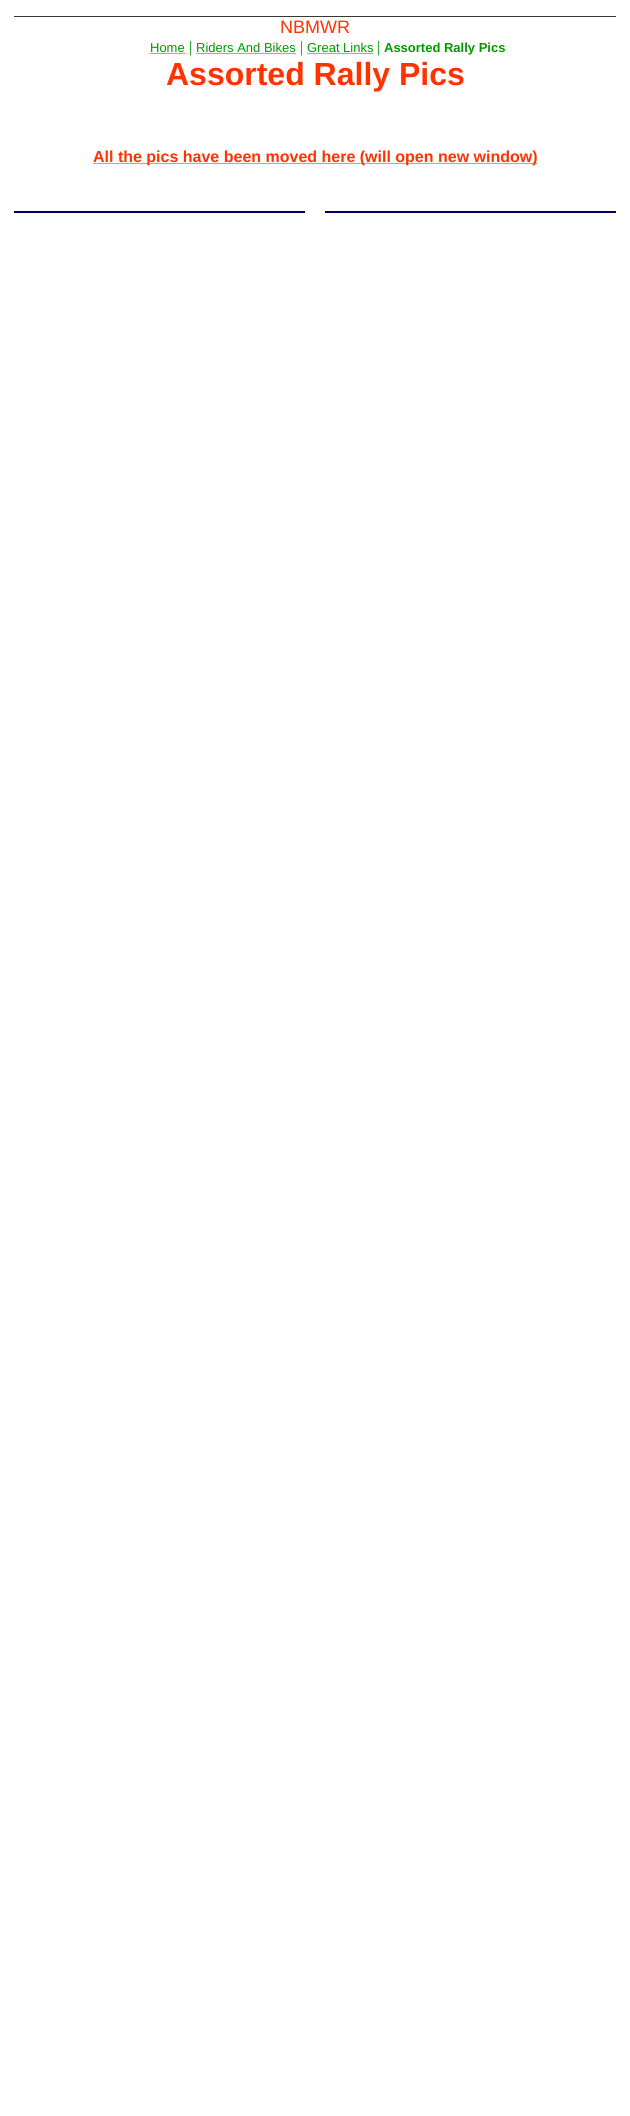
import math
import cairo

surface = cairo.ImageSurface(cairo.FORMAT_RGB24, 630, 2116)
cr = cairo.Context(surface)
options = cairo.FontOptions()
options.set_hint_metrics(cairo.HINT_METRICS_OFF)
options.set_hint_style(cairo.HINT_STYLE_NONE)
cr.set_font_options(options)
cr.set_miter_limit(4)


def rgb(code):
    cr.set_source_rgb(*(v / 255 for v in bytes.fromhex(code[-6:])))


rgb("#ffffff")
cr.paint()
for x, y, w, h, color in [
    (14, 16, 602, 1, "#393939"),
    (150, 53, 35, 1, "#33ff33"),
    (196, 53, 100, 1, "#33ff33"),
    (307, 53, 66, 1, "#33ff33"),
    (93, 163, 444, 1, "#33ff33"),
    (14, 211, 291, 2, "#000066"),
    (325, 211, 291, 2, "#000066"),
]:
    rgb(color)
    cr.rectangle(x, y, w, h)
    cr.fill()
cr.select_font_face("Liberation Sans")
cr.set_font_size(18)
rgb("#ff3300")
cr.move_to(280, 33)
cr.show_text("NBMWR")
cr.set_font_size(13)
rgb("#009900")
cr.move_to(150, 52)
cr.show_text("Home")
cr.select_font_face("Liberation Serif")
cr.set_font_size(16)
cr.move_to(189, 52)
cr.show_text("|")
cr.select_font_face("Liberation Sans")
cr.set_font_size(13)
cr.move_to(196, 52)
cr.show_text("Riders And Bikes")
cr.select_font_face("Liberation Serif")
cr.set_font_size(16)
cr.move_to(300, 52)
cr.show_text("|")
cr.select_font_face("Liberation Sans")
cr.set_font_size(13)
cr.move_to(307, 52)
cr.show_text("Great Links")
cr.select_font_face("Liberation Serif")
cr.set_font_size(16)
cr.move_to(377, 52)
cr.show_text("|")
cr.select_font_face("Liberation Sans", cairo.FONT_SLANT_NORMAL, cairo.FONT_WEIGHT_BOLD)
cr.set_font_size(13)
cr.move_to(384, 52)
cr.show_text("Assorted Rally Pics")
cr.set_font_size(32)
rgb("#ff3300")
cr.move_to(166, 85)
cr.show_text("Assorted Rally Pics")
cr.set_font_size(16)
cr.move_to(93, 162)
cr.show_text("All the pics have been moved here (will open new window)")
surface.write_to_png("page.png")
